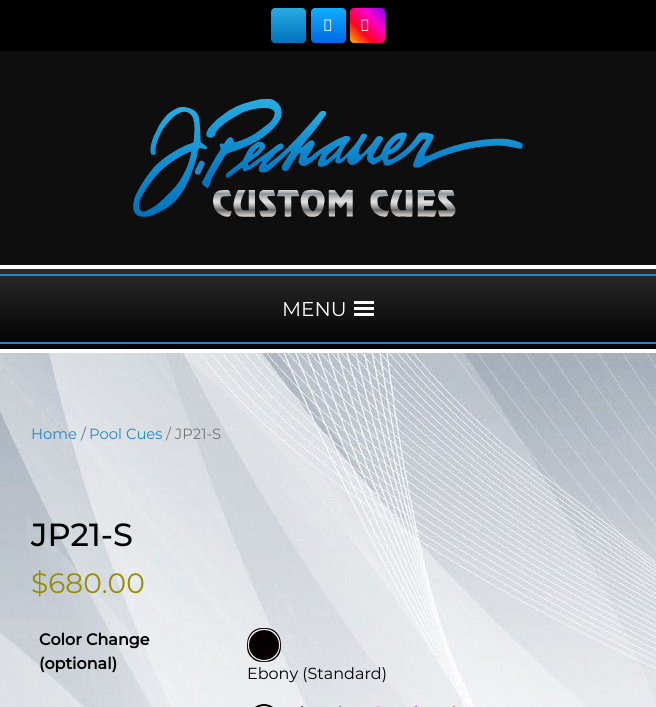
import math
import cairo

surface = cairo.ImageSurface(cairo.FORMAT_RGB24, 656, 707)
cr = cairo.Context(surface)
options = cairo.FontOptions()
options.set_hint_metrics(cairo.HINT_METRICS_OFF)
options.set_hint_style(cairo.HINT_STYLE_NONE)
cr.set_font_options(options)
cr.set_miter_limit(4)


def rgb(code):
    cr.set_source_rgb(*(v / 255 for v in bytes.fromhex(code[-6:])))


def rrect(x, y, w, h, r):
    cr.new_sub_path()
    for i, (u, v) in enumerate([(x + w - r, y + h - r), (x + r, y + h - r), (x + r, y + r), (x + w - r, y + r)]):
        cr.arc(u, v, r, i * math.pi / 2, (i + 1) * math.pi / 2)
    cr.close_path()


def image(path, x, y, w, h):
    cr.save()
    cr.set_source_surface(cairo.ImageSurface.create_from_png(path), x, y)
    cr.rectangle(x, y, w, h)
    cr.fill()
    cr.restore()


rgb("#0e0e0e")
cr.paint()
rgb("#000000")
cr.rectangle(0, 0, 656, 51)
cr.fill()
gradient = cairo.LinearGradient(289, 8, 289, 43)
gradient.add_color_stop_rgba(0, 0.161, 0.667, 0.882, 1)
gradient.add_color_stop_rgba(1, 0.004, 0.447, 0.741, 1)
cr.set_source(gradient)
rrect(271, 8, 35, 35, 4)
cr.fill()
gradient = cairo.LinearGradient(329, 8, 329, 43)
gradient.add_color_stop_rgba(0, 0.067, 0.682, 1, 1)
gradient.add_color_stop_rgba(1, 0, 0.408, 0.89, 1)
cr.set_source(gradient)
rrect(311, 8, 35, 35, 4)
cr.fill()
image("img/1.png", 324, 19, 8, 12)
gradient = cairo.LinearGradient(350, 43, 385, 8)
gradient.add_color_stop_rgba(0, 0.996, 0.733, 0, 1)
gradient.add_color_stop_rgba(0.33, 0.996, 0.012, 0.133, 1)
gradient.add_color_stop_rgba(0.67, 0.992, 0.004, 0.792, 1)
gradient.add_color_stop_rgba(1, 0.514, 0.012, 0.988, 1)
cr.set_source(gradient)
rrect(350, 8, 35, 35, 4)
cr.fill()
image("img/2.png", 361, 19, 8, 12)
image("img/3.png", 133, 99, 390, 118)
gradient = cairo.LinearGradient(328, 269, 328, 349)
gradient.add_color_stop_rgba(0, 0.169, 0.169, 0.169, 1)
gradient.add_color_stop_rgba(1, 0, 0, 0, 1)
cr.set_source(gradient)
cr.rectangle(0, 269, 656, 80)
cr.fill()
for x, y, w, h, color in [
    (0, 265, 656, 4, "#ffffff"),
    (0, 349, 656, 4, "#ffffff"),
    (0, 274, 656, 2, "#2288c9"),
    (0, 342, 656, 2, "#2288c9"),
]:
    rgb(color)
    cr.rectangle(x, y, w, h)
    cr.fill()
image("img/4.png", 354, 301, 20, 15)
image("img/5.png", 0, 353, 656, 354)
rgb("#000000")
cr.new_path()
cr.move_to(266, 628)
cr.curve_to(261.5, 628, 257, 630, 254.5, 633.5)
cr.curve_to(268.5, 622, 287, 640.5, 275.5, 654.5)
cr.curve_to(286, 646, 280, 628, 266, 628)
cr.close_path()
cr.fill()
cr.new_path()
cr.move_to(252.5, 635.5)
cr.curve_to(246, 641, 245, 651.5, 251.5, 657.5)
cr.curve_to(257.5, 664, 268, 663, 273.5, 656.5)
cr.curve_to(259.5, 668, 241, 649.5, 252.5, 635.5)
cr.close_path()
cr.fill()
cr.new_path()
cr.move_to(254.5, 656.5)
cr.curve_to(260, 663, 270.5, 664, 276.5, 657.5)
cr.curve_to(283, 651.5, 282, 641, 275.5, 635.5)
cr.curve_to(287, 649.5, 268.5, 668, 254.5, 656.5)
cr.close_path()
cr.fill()
cr.new_path()
cr.move_to(262, 628)
cr.curve_to(248, 628, 242, 646, 252.5, 654.5)
cr.curve_to(241, 640.5, 259.5, 622, 273.5, 633.5)
cr.curve_to(271, 630, 266.5, 628, 262, 628)
cr.close_path()
cr.fill()
rgb("#ffffff")
cr.new_path()
cr.move_to(265, 629)
cr.curve_to(260.5, 629, 256.5, 631, 254, 634)
cr.curve_to(268, 621, 288, 641, 275, 655)
cr.curve_to(285, 646, 279, 629, 265, 629)
cr.close_path()
cr.fill()
cr.new_path()
cr.move_to(253, 635)
cr.curve_to(246.5, 640.5, 246.5, 650.5, 252.5, 656.5)
cr.curve_to(258.5, 662.5, 268.5, 662.5, 274, 656)
cr.curve_to(260, 669, 240, 649, 253, 635)
cr.close_path()
cr.fill()
cr.new_path()
cr.move_to(254, 656)
cr.curve_to(259.5, 662.5, 269.5, 662.5, 275.5, 656.5)
cr.curve_to(281.5, 650.5, 281.5, 640.5, 275, 635)
cr.curve_to(288, 649, 268, 669, 254, 656)
cr.close_path()
cr.fill()
cr.new_path()
cr.move_to(263, 629)
cr.curve_to(249, 629, 243, 646, 253, 655)
cr.curve_to(240, 641, 260, 621, 274, 634)
cr.curve_to(271.5, 631, 267.5, 629, 263, 629)
cr.close_path()
cr.fill()
image("img/6.png", 249, 630, 30, 30)
rrect(250, 705, 28, 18, 14)
cr.fill_preserve()
rgb("#000000")
cr.stroke()
image("img/7.png", 301, 706, 2, 1)
image("img/8.png", 339, 706, 2, 1)
image("img/9.png", 377, 706, 2, 1)
image("img/10.png", 415, 706, 2, 1)
image("img/11.png", 453, 706, 2, 1)
cr.select_font_face("Montserrat")
cr.set_font_size(20)
rgb("#ffffff")
cr.move_to(282, 316)
cr.show_text("MENU")
cr.set_font_size(14.75)
rgb("#2288c9")
cr.move_to(31, 439)
cr.show_text("Home")
rgb("#767676")
cr.move_to(81, 439)
cr.show_text("/")
rgb("#2288c9")
cr.move_to(89, 439)
cr.show_text("Pool Cues")
rgb("#767676")
cr.move_to(166, 439)
cr.show_text("/ JP21-S")
cr.select_font_face("Montserrat Medium")
cr.set_font_size(32)
rgb("#000000")
cr.move_to(31, 546)
cr.show_text("JP21-S")
cr.select_font_face("Montserrat")
cr.set_font_size(28)
rgb("#958e09")
cr.move_to(31, 593)
cr.show_text("$680.00")
cr.select_font_face("Montserrat", cairo.FONT_SLANT_NORMAL, cairo.FONT_WEIGHT_BOLD)
cr.set_font_size(16)
rgb("#000000")
cr.move_to(39, 645)
cr.show_text("Color Change")
cr.move_to(39, 669)
cr.show_text("(optional)")
cr.select_font_face("Montserrat")
cr.move_to(247, 679)
cr.show_text("Ebony (Standard)")
surface.write_to_png("page.png")
